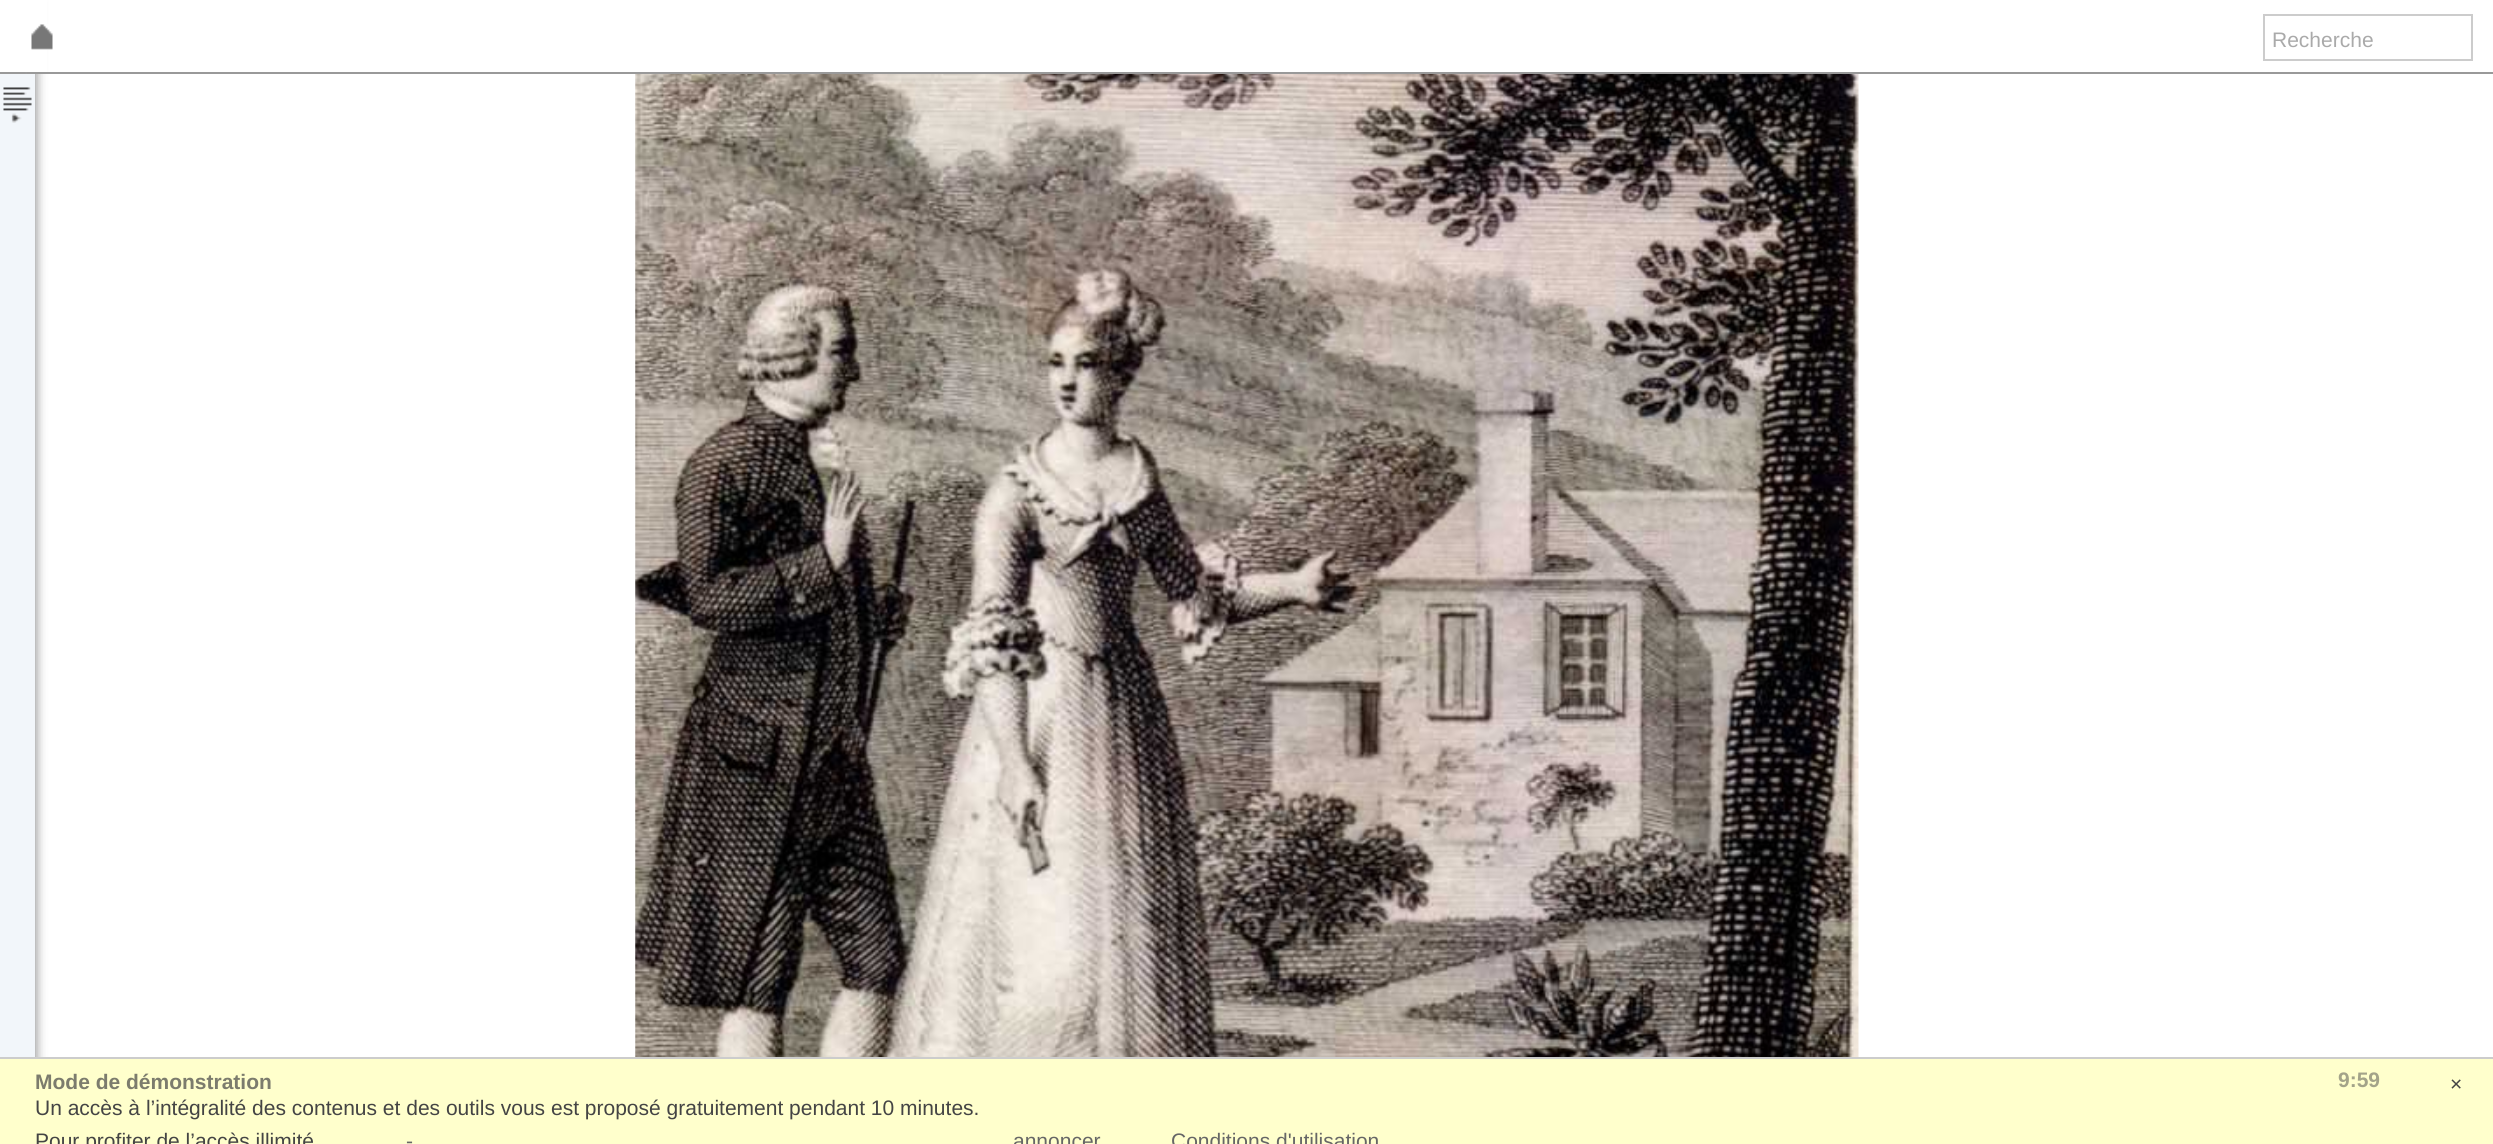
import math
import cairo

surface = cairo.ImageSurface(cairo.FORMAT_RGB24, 2493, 1144)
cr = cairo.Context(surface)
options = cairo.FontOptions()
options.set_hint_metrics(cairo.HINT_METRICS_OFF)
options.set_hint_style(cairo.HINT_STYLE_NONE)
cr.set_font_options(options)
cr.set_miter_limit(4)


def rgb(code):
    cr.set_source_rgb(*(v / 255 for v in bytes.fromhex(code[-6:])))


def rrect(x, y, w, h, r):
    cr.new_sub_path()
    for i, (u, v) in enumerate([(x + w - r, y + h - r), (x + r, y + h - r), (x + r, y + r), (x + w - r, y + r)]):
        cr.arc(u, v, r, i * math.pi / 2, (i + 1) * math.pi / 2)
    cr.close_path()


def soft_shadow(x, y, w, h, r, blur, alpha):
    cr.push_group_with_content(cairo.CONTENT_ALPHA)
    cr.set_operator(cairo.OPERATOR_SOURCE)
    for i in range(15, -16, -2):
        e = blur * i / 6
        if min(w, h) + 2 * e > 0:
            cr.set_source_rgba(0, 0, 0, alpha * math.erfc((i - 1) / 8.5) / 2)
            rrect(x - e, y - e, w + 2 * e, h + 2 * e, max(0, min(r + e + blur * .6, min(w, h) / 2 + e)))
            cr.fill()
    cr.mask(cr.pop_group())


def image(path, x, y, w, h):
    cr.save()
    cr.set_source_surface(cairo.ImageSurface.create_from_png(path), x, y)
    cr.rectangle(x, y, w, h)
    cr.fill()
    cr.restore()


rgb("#ffffff")
cr.paint()
rgb("#999999")
soft_shadow(-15, 2, 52, 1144, 0, 5, 1)
rgb("#f2f6fa")
cr.rectangle(0, 74, 35, 983)
cr.fill()
image("img/1.png", 3, 87, 29, 36)
image("img/2.png", 635, 74, 1224, 983)
rgb("#ffffff")
cr.rectangle(0, 0, 47, 72)
cr.fill()
rgb("#999999")
cr.rectangle(27, 72, 2466, 2)
cr.fill()
image("img/3.png", 31, 24, 22, 26)
cr.rectangle(2264, 15, 208, 45)
rgb("#cccccc")
cr.stroke()
rgb("#ffffcc")
cr.rectangle(0, 1059, 2493, 85)
cr.fill()
rgb("#cccccc")
cr.rectangle(0, 1057, 2493, 2)
cr.fill()
cr.select_font_face("Liberation Sans")
cr.set_font_size(21)
rgb("#aaaaaa")
cr.move_to(2272, 47)
cr.show_text("Recherche")
cr.select_font_face("Liberation Sans", cairo.FONT_SLANT_NORMAL, cairo.FONT_WEIGHT_BOLD)
rgb("#7c7c6d")
cr.move_to(35, 1089)
cr.show_text("Mode de démonstration")
rgb("#a3a389")
cr.move_to(2338, 1087)
cr.show_text("9:59")
cr.select_font_face("Liberation Sans")
rgb("#444444")
for x, y, s in [
    (2450, 1091, "×"),
    (35, 1115, "Un accès à l’intégralité des contenus et des outils vous est proposé gratuitement pendant 10 minutes."),
    (35, 1148, "Pour profiter de l’accès illimité"),
]:
    cr.move_to(x, y)
    cr.show_text(s)
rgb("#666666")
for x, y, s in [
    (406, 1148, "-"),
    (1013, 1148, "annoncer"),
    (1171, 1148, "Conditions d'utilisation"),
]:
    cr.move_to(x, y)
    cr.show_text(s)
surface.write_to_png("page.png")
